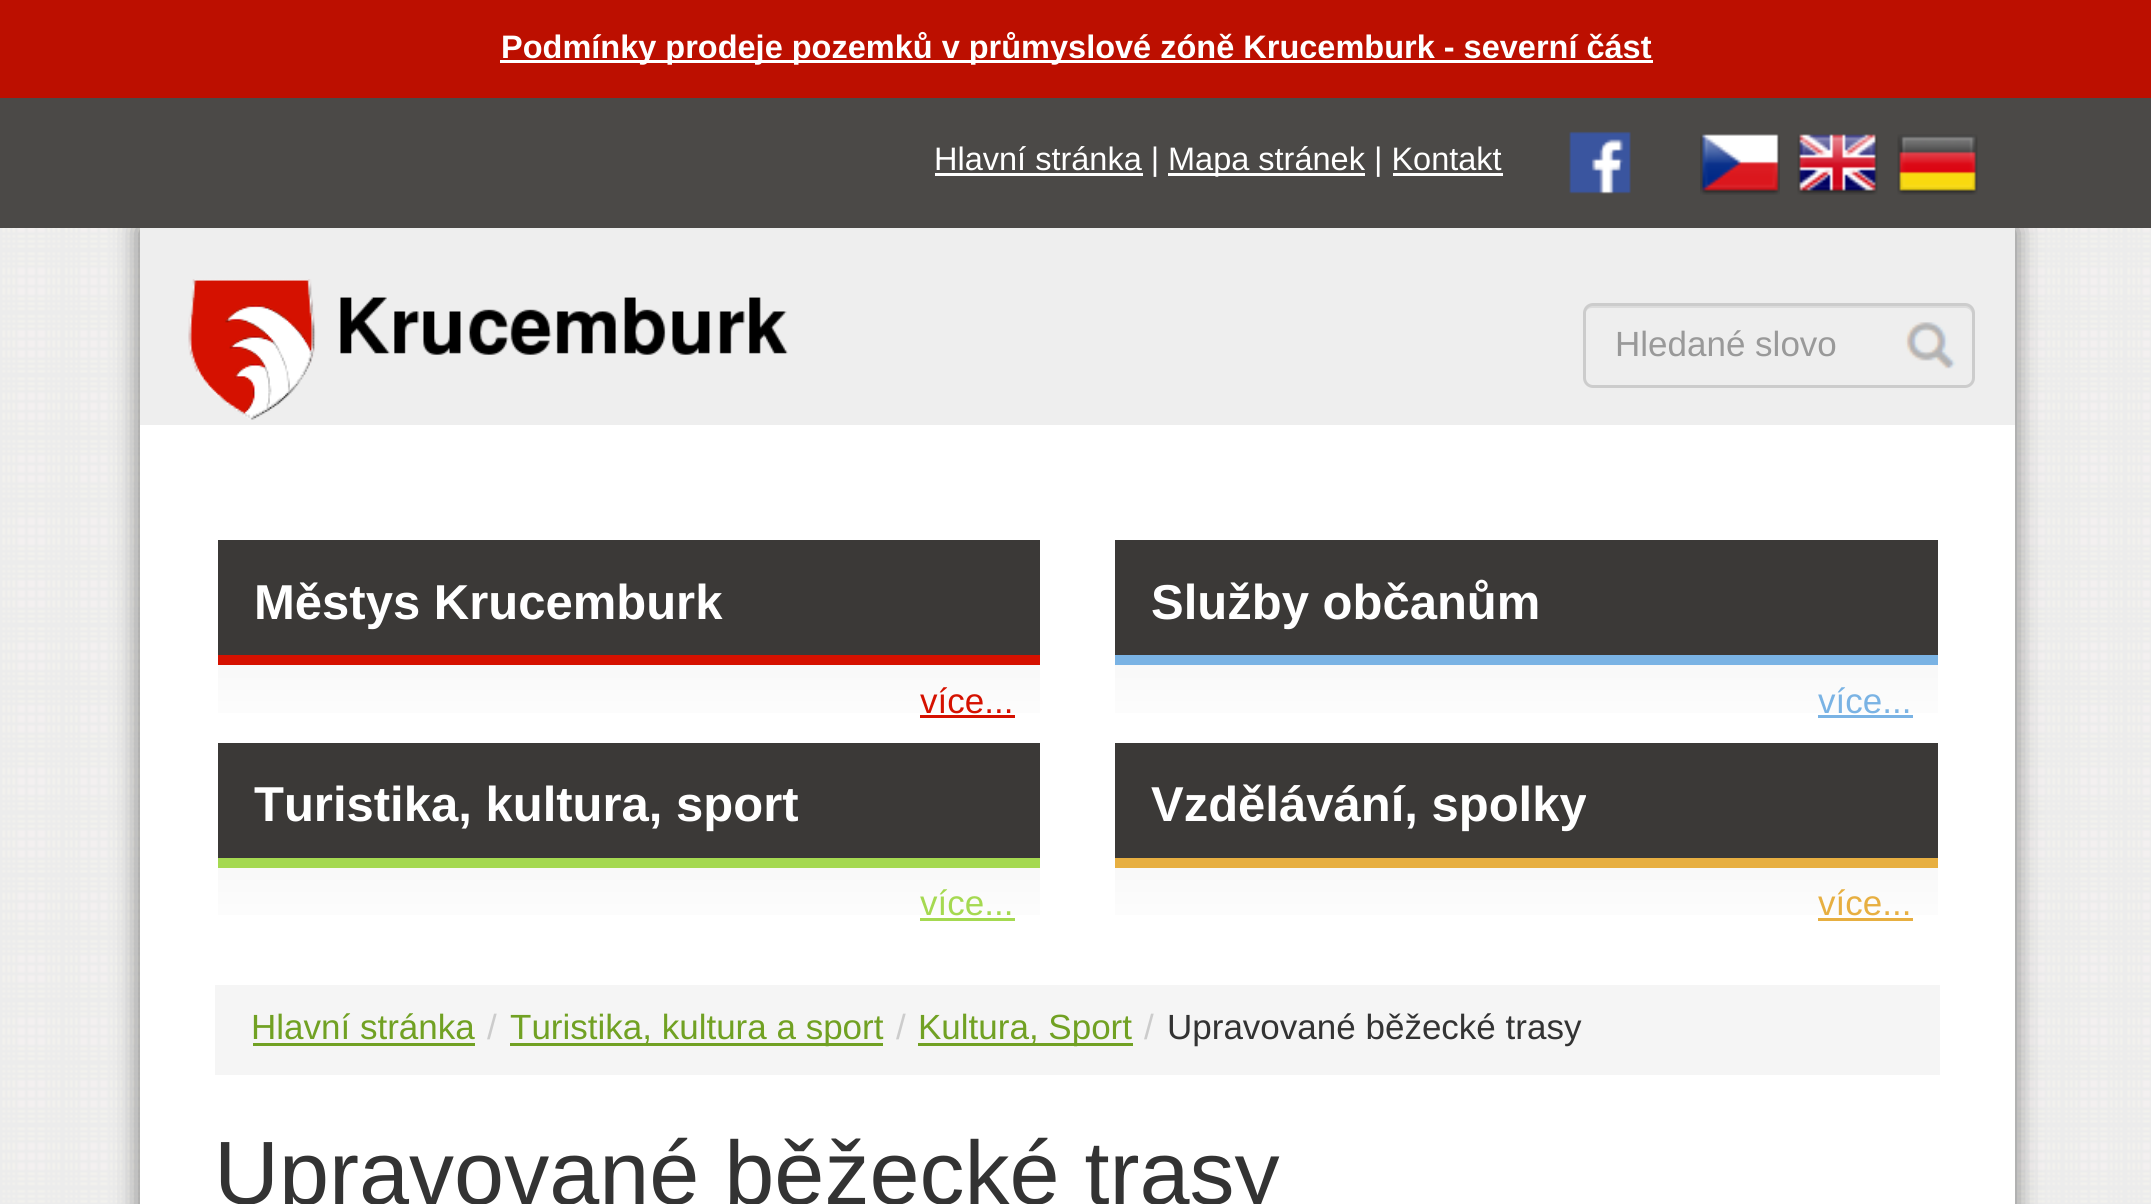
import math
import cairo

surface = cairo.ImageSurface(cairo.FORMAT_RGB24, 2151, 1204)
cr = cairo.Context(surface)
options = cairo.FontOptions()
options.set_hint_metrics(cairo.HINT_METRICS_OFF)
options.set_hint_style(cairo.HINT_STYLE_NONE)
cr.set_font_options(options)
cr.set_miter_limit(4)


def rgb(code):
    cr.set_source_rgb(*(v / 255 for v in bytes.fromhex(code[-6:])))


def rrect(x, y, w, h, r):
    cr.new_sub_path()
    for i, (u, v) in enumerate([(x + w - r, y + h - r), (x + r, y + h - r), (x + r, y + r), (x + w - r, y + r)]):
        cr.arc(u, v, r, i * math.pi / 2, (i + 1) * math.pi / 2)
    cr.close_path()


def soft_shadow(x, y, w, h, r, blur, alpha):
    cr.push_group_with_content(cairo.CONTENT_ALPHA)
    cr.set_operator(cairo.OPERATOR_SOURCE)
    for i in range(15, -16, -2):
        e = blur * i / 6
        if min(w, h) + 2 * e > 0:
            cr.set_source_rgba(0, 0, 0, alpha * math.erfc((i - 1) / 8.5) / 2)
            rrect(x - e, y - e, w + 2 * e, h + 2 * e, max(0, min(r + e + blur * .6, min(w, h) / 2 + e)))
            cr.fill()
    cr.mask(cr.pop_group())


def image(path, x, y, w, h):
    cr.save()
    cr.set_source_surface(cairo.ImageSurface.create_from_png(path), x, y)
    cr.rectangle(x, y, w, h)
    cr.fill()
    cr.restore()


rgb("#ffffff")
cr.paint()
image("img/1.png", 0, 228, 2151, 976)
rgb("#bc0f00")
cr.rectangle(0, 0, 2151, 98)
cr.fill()
rgb("#ffffff")
cr.rectangle(500, 60, 1153, 3)
cr.fill()
rgb("#000000")
soft_shadow(140, 228, 1875, 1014, 0, 12.5, 0.5)
for x, y, w, h, color in [
    (0, 98, 2151, 130, "#4b4947"),
    (935, 173, 208, 3, "#ffffff"),
    (1168, 173, 197, 3, "#ffffff"),
    (1393, 173, 110, 3, "#ffffff"),
]:
    rgb(color)
    cr.rectangle(x, y, w, h)
    cr.fill()
image("img/2.png", 1569, 131, 62, 63)
image("img/3.png", 1700, 134, 80, 61)
image("img/4.png", 1797, 134, 81, 61)
image("img/5.png", 1897, 134, 81, 61)
cr.rectangle(140, 425, 1875, 779)
cr.fill()
rgb("#eeeeee")
cr.rectangle(140, 228, 1875, 197)
cr.fill()
image("img/6.png", 188, 279, 600, 141)
image("img/7.png", 1905, 322, 51, 47)
rgb("#dcdcdc")
cr.new_path()
cr.move_to(1592, 308)
cr.line_to(1965, 308)
cr.curve_to(1969, 308, 1972, 311, 1972, 315)
cr.line_to(1972, 381)
cr.curve_to(1973, 380, 1973, 378, 1973, 377)
cr.line_to(1973, 313)
cr.curve_to(1973, 309, 1969, 305, 1965, 305)
cr.line_to(1593, 305)
cr.curve_to(1589, 305, 1585, 309, 1585, 313)
cr.line_to(1585, 315)
cr.curve_to(1585, 311, 1588, 308, 1592, 308)
cr.close_path()
cr.fill()
rrect(1584.5, 304.5, 389, 82, 8.5)
rgb("#cccccc")
cr.set_line_width(3)
cr.stroke()
gradient = cairo.LinearGradient(629, 540, 629, 743)
gradient.add_color_stop_rgba(0, 0.933, 0.933, 0.933, 1)
gradient.add_color_stop_rgba(1, 1, 1, 1, 1)
cr.set_source(gradient)
cr.rectangle(218, 665, 822, 48)
cr.fill()
for x, y, w, h, color in [
    (218, 540, 822, 115, "#3b3937"),
    (218, 655, 822, 10, "#d51100"),
    (920, 715, 95, 3, "#d51100"),
]:
    rgb(color)
    cr.rectangle(x, y, w, h)
    cr.fill()
gradient = cairo.LinearGradient(1526, 540, 1526, 743)
gradient.add_color_stop_rgba(0, 0.933, 0.933, 0.933, 1)
gradient.add_color_stop_rgba(1, 1, 1, 1, 1)
cr.set_source(gradient)
cr.rectangle(1115, 665, 823, 48)
cr.fill()
for x, y, w, h, color in [
    (1115, 540, 823, 115, "#3b3937"),
    (1115, 655, 823, 10, "#7ab3e4"),
    (1818, 715, 95, 3, "#7ab3e4"),
]:
    rgb(color)
    cr.rectangle(x, y, w, h)
    cr.fill()
gradient = cairo.LinearGradient(629, 743, 629, 945)
gradient.add_color_stop_rgba(0, 0.933, 0.933, 0.933, 1)
gradient.add_color_stop_rgba(1, 1, 1, 1, 1)
cr.set_source(gradient)
cr.rectangle(218, 868, 822, 47)
cr.fill()
for x, y, w, h, color in [
    (218, 743, 822, 115, "#3b3937"),
    (218, 858, 822, 10, "#a5d951"),
    (920, 918, 95, 3, "#a5d951"),
]:
    rgb(color)
    cr.rectangle(x, y, w, h)
    cr.fill()
gradient = cairo.LinearGradient(1526, 743, 1526, 945)
gradient.add_color_stop_rgba(0, 0.933, 0.933, 0.933, 1)
gradient.add_color_stop_rgba(1, 1, 1, 1, 1)
cr.set_source(gradient)
cr.rectangle(1115, 868, 823, 47)
cr.fill()
for x, y, w, h, color in [
    (1115, 743, 823, 115, "#3b3937"),
    (1115, 858, 823, 10, "#e7af41"),
    (1818, 918, 95, 3, "#e7af41"),
    (215, 985, 1725, 90, "#f5f5f5"),
    (253, 1043, 222, 3, "#71a123"),
    (510, 1043, 373, 3, "#71a123"),
    (918, 1043, 215, 3, "#71a123"),
]:
    rgb(color)
    cr.rectangle(x, y, w, h)
    cr.fill()
cr.select_font_face("Liberation Sans", cairo.FONT_SLANT_NORMAL, cairo.FONT_WEIGHT_BOLD)
cr.set_font_size(32.5)
rgb("#ffffff")
cr.move_to(501, 58)
cr.show_text("Podmínky prodeje pozemků v průmyslové zóně Krucemburk - severní část")
cr.select_font_face("Liberation Sans")
cr.move_to(934, 170)
cr.show_text("Hlavní stránka |")
cr.move_to(1168, 170)
cr.show_text("Mapa stránek | Kontakt")
cr.set_font_size(35)
rgb("#999999")
cr.move_to(1615, 356)
cr.show_text("Hledané slovo")
cr.select_font_face("Liberation Sans", cairo.FONT_SLANT_NORMAL, cairo.FONT_WEIGHT_BOLD)
cr.set_font_size(49)
rgb("#ffffff")
cr.move_to(254, 619)
cr.show_text("Městys Krucemburk")
cr.select_font_face("Liberation Sans")
cr.set_font_size(35)
rgb("#d51100")
cr.move_to(920, 713)
cr.show_text("více...")
cr.select_font_face("Liberation Sans", cairo.FONT_SLANT_NORMAL, cairo.FONT_WEIGHT_BOLD)
cr.set_font_size(49)
rgb("#ffffff")
cr.move_to(1151, 619)
cr.show_text("Služby občanům")
cr.select_font_face("Liberation Sans")
cr.set_font_size(35)
rgb("#7ab3e4")
cr.move_to(1818, 713)
cr.show_text("více...")
cr.select_font_face("Liberation Sans", cairo.FONT_SLANT_NORMAL, cairo.FONT_WEIGHT_BOLD)
cr.set_font_size(49)
rgb("#ffffff")
cr.move_to(254, 821)
cr.show_text("Turistika, kultura, sport")
cr.select_font_face("Liberation Sans")
cr.set_font_size(35)
rgb("#a5d951")
cr.move_to(920, 915)
cr.show_text("více...")
cr.select_font_face("Liberation Sans", cairo.FONT_SLANT_NORMAL, cairo.FONT_WEIGHT_BOLD)
cr.set_font_size(49)
rgb("#ffffff")
cr.move_to(1151, 821)
cr.show_text("Vzdělávání, spolky")
cr.select_font_face("Liberation Sans")
cr.set_font_size(35)
rgb("#e7af41")
cr.move_to(1818, 915)
cr.show_text("více...")
rgb("#71a123")
cr.move_to(251, 1039)
cr.show_text("Hlavní stránka")
rgb("#cccccc")
cr.move_to(487, 1039)
cr.show_text("/")
rgb("#71a123")
cr.move_to(510, 1039)
cr.show_text("Turistika, kultura a sport")
rgb("#cccccc")
cr.move_to(896, 1039)
cr.show_text("/")
rgb("#71a123")
cr.move_to(918, 1039)
cr.show_text("Kultura, Sport")
rgb("#cccccc")
cr.move_to(1144, 1039)
cr.show_text("/")
rgb("#333333")
cr.move_to(1167, 1039)
cr.show_text("Upravované běžecké trasy")
cr.set_font_size(90)
cr.move_to(214, 1204)
cr.show_text("Upravované běžecké trasy")
surface.write_to_png("page.png")
